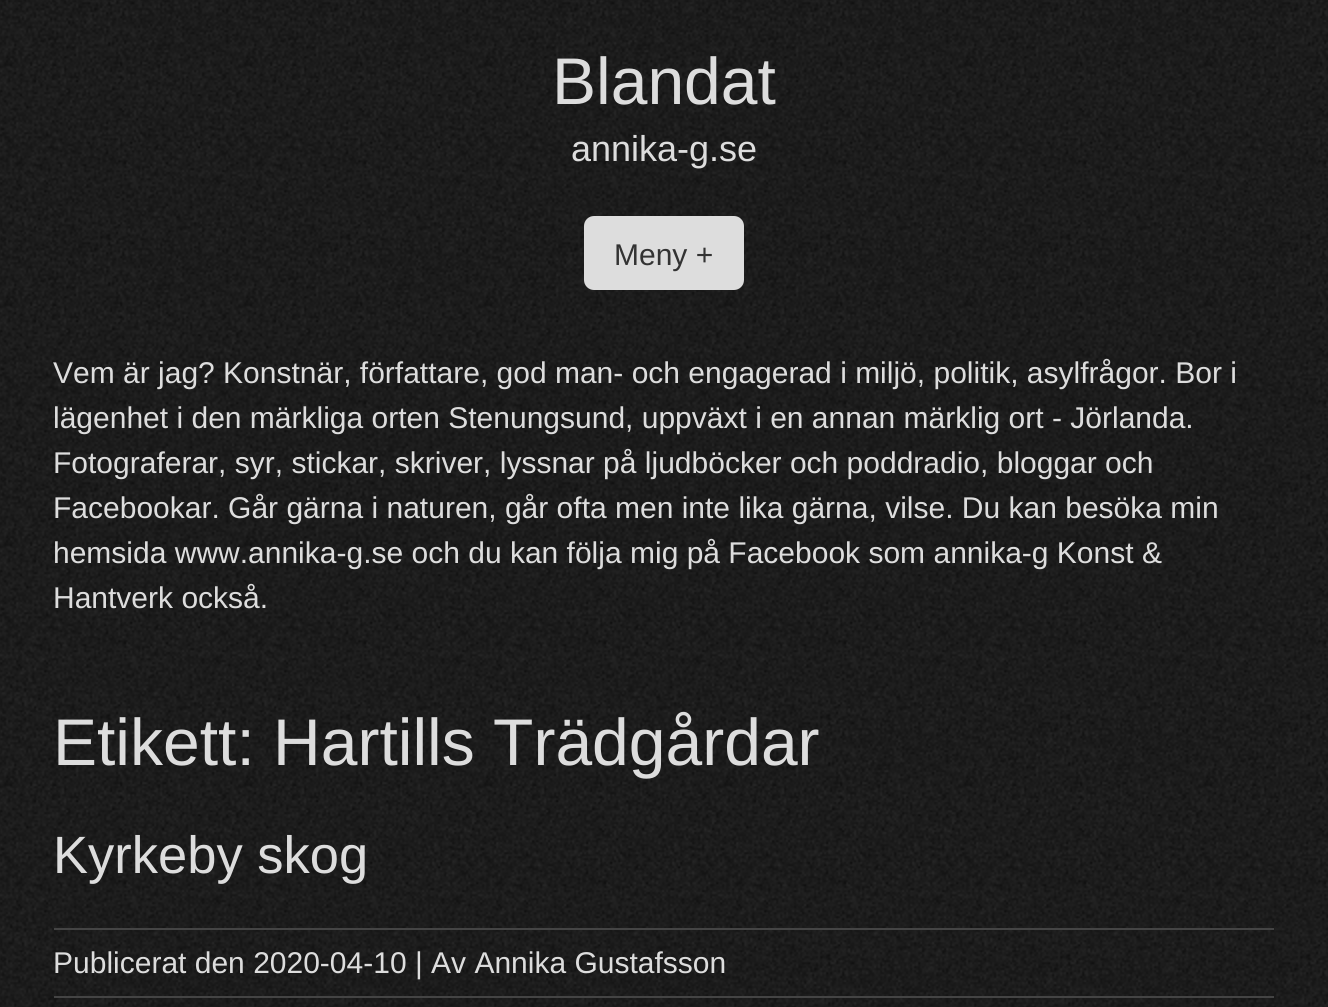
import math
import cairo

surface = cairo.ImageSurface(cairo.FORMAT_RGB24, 1328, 1007)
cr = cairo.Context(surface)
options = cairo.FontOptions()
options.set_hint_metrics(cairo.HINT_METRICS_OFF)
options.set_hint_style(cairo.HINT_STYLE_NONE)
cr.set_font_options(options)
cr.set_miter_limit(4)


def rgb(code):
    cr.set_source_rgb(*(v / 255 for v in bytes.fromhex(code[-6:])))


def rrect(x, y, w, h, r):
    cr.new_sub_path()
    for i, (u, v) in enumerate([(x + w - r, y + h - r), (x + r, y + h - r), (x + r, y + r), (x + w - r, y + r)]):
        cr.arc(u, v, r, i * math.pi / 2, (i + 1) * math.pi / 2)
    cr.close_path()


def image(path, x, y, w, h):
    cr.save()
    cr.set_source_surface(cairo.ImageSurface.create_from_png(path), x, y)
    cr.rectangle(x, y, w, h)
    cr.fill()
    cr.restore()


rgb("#ffffff")
cr.paint()
image("img/1.png", 0, 0, 1328, 1007)
rgb("#dddddd")
rrect(584, 216, 160, 74, 10)
cr.fill()
rgb("#444444")
cr.rectangle(54, 928, 1220, 2)
cr.fill()
cr.rectangle(54, 996, 1220, 2)
cr.fill()
cr.select_font_face("Liberation Sans")
cr.set_font_size(66)
rgb("#dddddd")
cr.move_to(552, 104)
cr.show_text("Blandat")
cr.set_font_size(36)
cr.move_to(571, 161)
cr.show_text("annika-g.se")
cr.set_font_size(30)
rgb("#333333")
cr.move_to(614, 265)
cr.show_text("Meny +")
rgb("#dddddd")
for x, y, s in [
    (53, 383, "Vem är jag? Konstnär, författare, god man- och engagerad i miljö, politik, asylfrågor. Bor i"),
    (53, 428, "lägenhet i den märkliga orten Stenungsund, uppväxt i en annan märklig ort - Jörlanda."),
    (53, 473, "Fotograferar, syr, stickar, skriver, lyssnar på ljudböcker och poddradio, bloggar och"),
    (53, 518, "Facebookar. Går gärna i naturen, går ofta men inte lika gärna, vilse. Du kan besöka min"),
    (53, 563, "hemsida www.annika-g.se och du kan följa mig på Facebook som annika-g Konst &"),
    (53, 608, "Hantverk också."),
]:
    cr.move_to(x, y)
    cr.show_text(s)
cr.set_font_size(66)
cr.move_to(53, 765)
cr.show_text("Etikett: Hartills Trädgårdar")
cr.set_font_size(52.5)
cr.move_to(53, 873)
cr.show_text("Kyrkeby skog")
cr.set_font_size(30)
cr.move_to(53, 973)
cr.show_text("Publicerat den 2020-04-10 | Av Annika Gustafsson")
surface.write_to_png("page.png")
